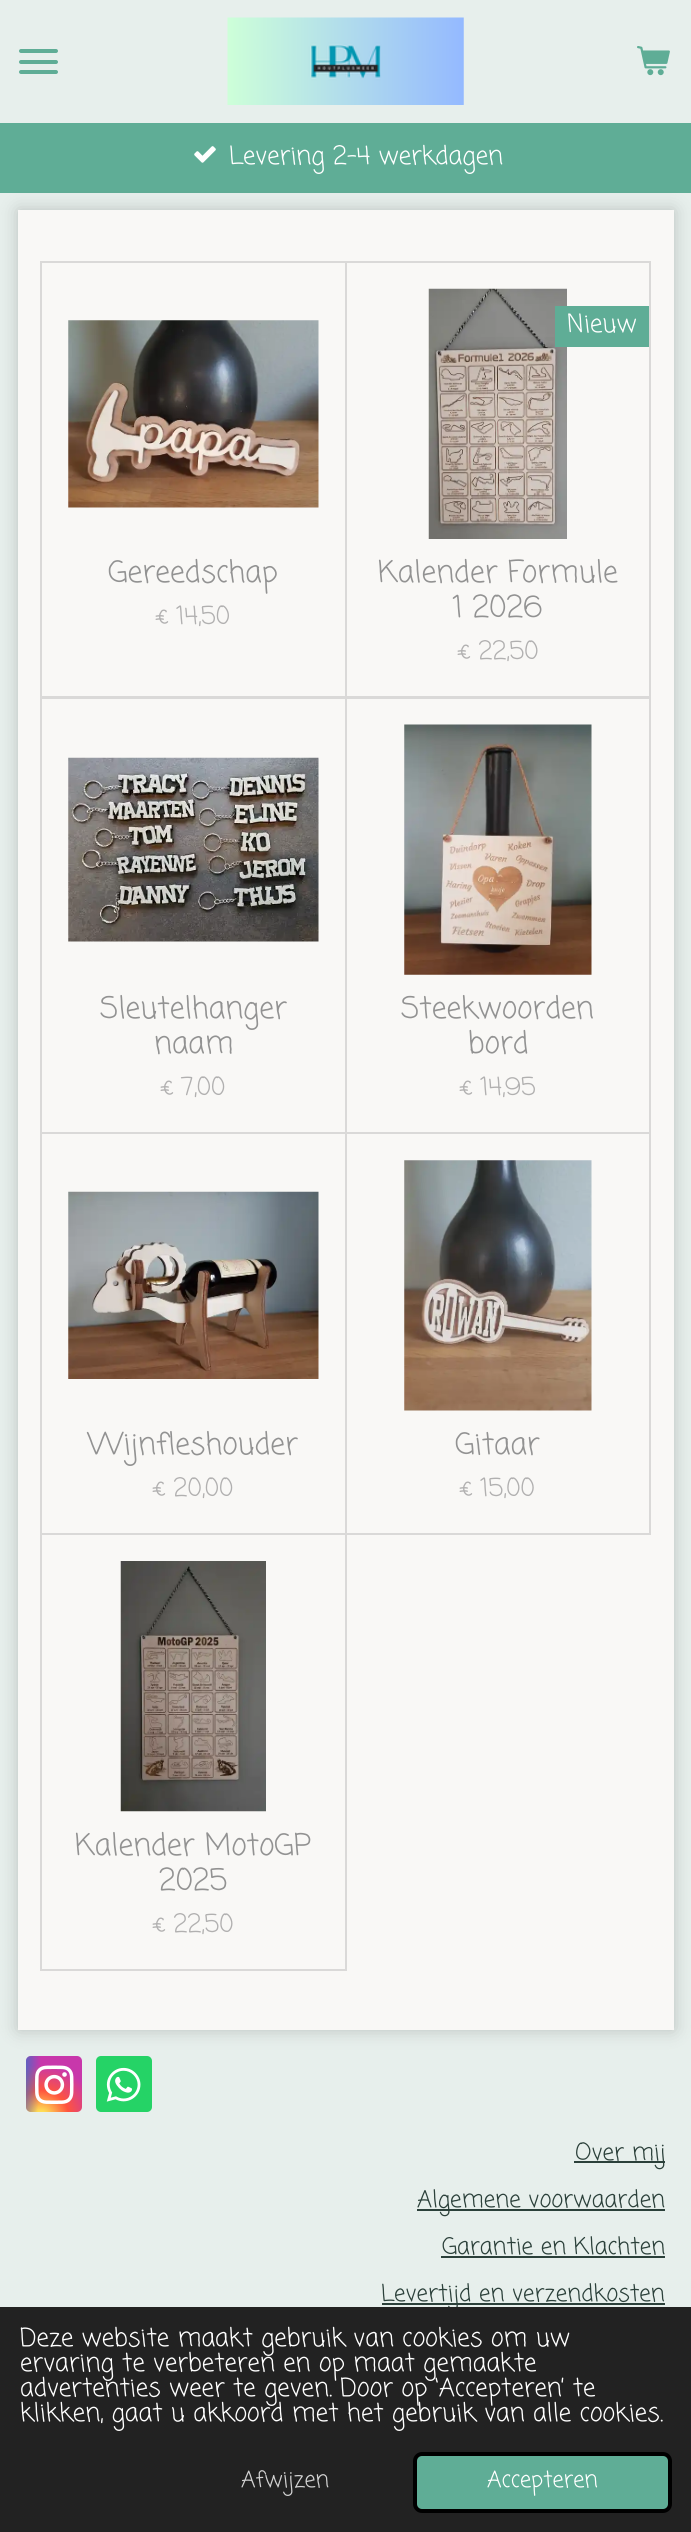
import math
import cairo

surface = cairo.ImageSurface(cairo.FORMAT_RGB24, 691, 2532)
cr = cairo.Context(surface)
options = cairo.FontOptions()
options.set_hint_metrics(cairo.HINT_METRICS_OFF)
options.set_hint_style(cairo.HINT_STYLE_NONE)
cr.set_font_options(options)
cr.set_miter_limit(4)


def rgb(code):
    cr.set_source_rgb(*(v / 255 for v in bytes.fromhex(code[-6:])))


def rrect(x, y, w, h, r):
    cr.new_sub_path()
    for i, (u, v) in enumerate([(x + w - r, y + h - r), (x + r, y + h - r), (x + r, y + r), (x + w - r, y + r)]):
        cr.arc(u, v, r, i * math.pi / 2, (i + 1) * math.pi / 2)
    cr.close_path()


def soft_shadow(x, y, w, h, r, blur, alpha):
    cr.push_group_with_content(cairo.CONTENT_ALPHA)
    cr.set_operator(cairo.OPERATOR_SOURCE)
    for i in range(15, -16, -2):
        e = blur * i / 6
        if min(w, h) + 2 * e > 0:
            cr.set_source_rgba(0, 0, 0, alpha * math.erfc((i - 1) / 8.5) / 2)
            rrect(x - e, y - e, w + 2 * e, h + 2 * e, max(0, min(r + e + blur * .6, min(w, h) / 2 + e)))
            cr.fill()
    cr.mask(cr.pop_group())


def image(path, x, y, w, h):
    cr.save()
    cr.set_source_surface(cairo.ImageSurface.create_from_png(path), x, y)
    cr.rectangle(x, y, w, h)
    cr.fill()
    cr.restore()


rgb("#e7efec")
cr.paint()
rgb("#5fad96")
rrect(19, 60, 39, 4, 2)
cr.fill()
rrect(19, 49, 39, 4, 2)
cr.fill()
rrect(19, 70, 39, 4, 2)
cr.fill()
image("img/1.png", 227, 17, 237, 88)
image("img/2.png", 637, 46, 33, 30)
cr.rectangle(0, 123, 691, 70)
cr.fill()
image("img/3.png", 194, 146, 22, 17)
rgb("#000000")
soft_shadow(18, 210, 656, 1820, 0, 9, 0.2)
rgb("#f9f8f6")
cr.rectangle(18, 210, 656, 1820)
cr.fill()
cr.rectangle(41, 262, 305, 435)
rgb("#dad9d8")
cr.stroke()
image("img/4.png", 68, 320, 251, 188)
cr.rectangle(346, 262, 304, 435)
cr.stroke()
image("img/5.png", 428, 288, 139, 251)
rgb("#5fad96")
cr.rectangle(555, 306, 94, 41)
cr.fill()
cr.rectangle(41, 698, 305, 435)
rgb("#dad9d8")
cr.stroke()
image("img/6.png", 68, 757, 251, 185)
cr.rectangle(346, 698, 304, 435)
cr.stroke()
image("img/7.png", 404, 724, 188, 251)
cr.rectangle(41, 1133, 305, 401)
cr.stroke()
image("img/8.png", 68, 1191, 251, 188)
cr.rectangle(346, 1133, 304, 401)
cr.stroke()
image("img/9.png", 404, 1160, 188, 251)
cr.rectangle(41, 1534, 305, 436)
cr.stroke()
image("img/10.png", 120, 1561, 146, 251)
gradient = cairo.RadialGradient(0, 0, 0, 0, 0, 1)
gradient.set_matrix(cairo.Matrix(1 / 55, 0, 0, 1 / 51, -1 * 41 / 55, -1 * 2116 / 51))
gradient.add_color_stop_rgba(0, 1, 0.867, 0.333, 1)
gradient.add_color_stop_rgba(0.1, 1, 0.867, 0.333, 1)
gradient.add_color_stop_rgba(0.5, 1, 0.329, 0.243, 1)
gradient.add_color_stop_rgba(1, 0.784, 0.216, 0.671, 1)
cr.set_source(gradient)
rrect(26, 2056, 56, 56, 5)
cr.fill()
gradient = cairo.RadialGradient(0, 0, 0, 0, 0, 1)
gradient.set_matrix(cairo.Matrix(1 / 24, 0, 0, 1 / 101, -1 * 17 / 24, -1 * 2060 / 101))
gradient.add_color_stop_rgba(0, 0.216, 0.443, 0.784, 1)
gradient.add_color_stop_rgba(0.13, 0.216, 0.443, 0.784, 1)
gradient.add_color_stop_rgba(1, 0.216, 0.443, 0.784, 0)
cr.set_source(gradient)
rrect(26, 2056, 56, 56, 5)
cr.fill()
image("img/11.png", 35, 2065, 39, 39)
rgb("#25d366")
rrect(96, 2056, 56, 56, 5)
cr.fill()
image("img/12.png", 106, 2067, 35, 35)
for x, y, w, h, color in [
    (574, 2161, 91, 2, "#2b403a"),
    (417, 2209, 248, 2, "#2b403a"),
    (441, 2256, 224, 2, "#2b403a"),
    (382, 2303, 283, 2, "#2b403a"),
]:
    rgb(color)
    cr.rectangle(x, y, w, h)
    cr.fill()
cr.select_font_face("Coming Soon")
cr.set_font_size(25)
rgb("#ffffff")
cr.move_to(229, 164)
cr.show_text("Levering 2-4 werkdagen")
cr.set_font_size(30)
rgb("#929292")
cr.move_to(108, 582)
cr.show_text("Gereedschap")
cr.set_font_size(25)
rgb("#b1b0b0")
cr.move_to(156, 624)
cr.show_text("€ 14,50")
rgb("#ffffff")
cr.move_to(567, 332)
cr.show_text("Nieuw")
cr.set_font_size(30)
rgb("#929292")
cr.move_to(378, 582)
cr.show_text("Kalender Formule")
cr.move_to(453, 617)
cr.show_text("1 2026")
cr.set_font_size(25)
rgb("#b1b0b0")
cr.move_to(458, 659)
cr.show_text("€ 22,50")
cr.set_font_size(30)
rgb("#929292")
cr.move_to(100, 1018)
cr.show_text("Sleutelhanger")
cr.move_to(154, 1053)
cr.show_text("naam")
cr.set_font_size(25)
rgb("#b1b0b0")
cr.move_to(161, 1095)
cr.show_text("€ 7,00")
cr.set_font_size(30)
rgb("#929292")
cr.move_to(401, 1018)
cr.show_text("Steekwoorden")
cr.move_to(468, 1053)
cr.show_text("bord")
cr.set_font_size(25)
rgb("#b1b0b0")
cr.move_to(460, 1095)
cr.show_text("€ 14,95")
cr.set_font_size(30)
rgb("#929292")
cr.move_to(88, 1454)
cr.show_text("Wijnfleshouder")
cr.set_font_size(25)
rgb("#b1b0b0")
cr.move_to(153, 1496)
cr.show_text("€ 20,00")
cr.set_font_size(30)
rgb("#929292")
cr.move_to(455, 1454)
cr.show_text("Gitaar")
cr.set_font_size(25)
rgb("#b1b0b0")
cr.move_to(460, 1496)
cr.show_text("€ 15,00")
cr.set_font_size(30)
rgb("#929292")
cr.move_to(75, 1855)
cr.show_text("Kalender MotoGP")
cr.move_to(159, 1890)
cr.show_text("2025")
cr.set_font_size(25)
rgb("#b1b0b0")
cr.move_to(153, 1932)
cr.show_text("€ 22,50")
cr.set_font_size(23.25)
rgb("#2b403a")
for x, y, s in [
    (575, 2160, "Over mij"),
    (417, 2207, "Algemene voorwaarden"),
    (442, 2254, "Garantie en Klachten"),
    (381, 2301, "Levertijd en verzendkosten"),
]:
    cr.move_to(x, y)
    cr.show_text(s)
rgb("#222222")
cr.rectangle(0, 2307, 691, 225)
cr.fill()
cr.set_font_size(25)
rgb("#ffffff")
for x, y, s in [
    (20, 2346, "Deze website maakt gebruik van cookies om uw"),
    (20, 2371, "ervaring te verbeteren en op maat gemaakte"),
    (20, 2396, "advertenties weer te geven. Door op ‘Accepteren’ te"),
    (20, 2421, "klikken, gaat u akkoord met het gebruik van alle cookies."),
]:
    cr.move_to(x, y)
    cr.show_text(s)
cr.set_font_size(22.5)
rgb("#d3d3d3")
cr.move_to(241, 2487)
cr.show_text("Afwijzen")
rgb("#5fad96")
rrect(415, 2454, 255, 57, 7)
cr.fill_preserve()
rgb("#000000")
cr.set_line_width(4)
cr.stroke()
rgb("#ffffff")
cr.move_to(487, 2487)
cr.show_text("Accepteren")
surface.write_to_png("page.png")
